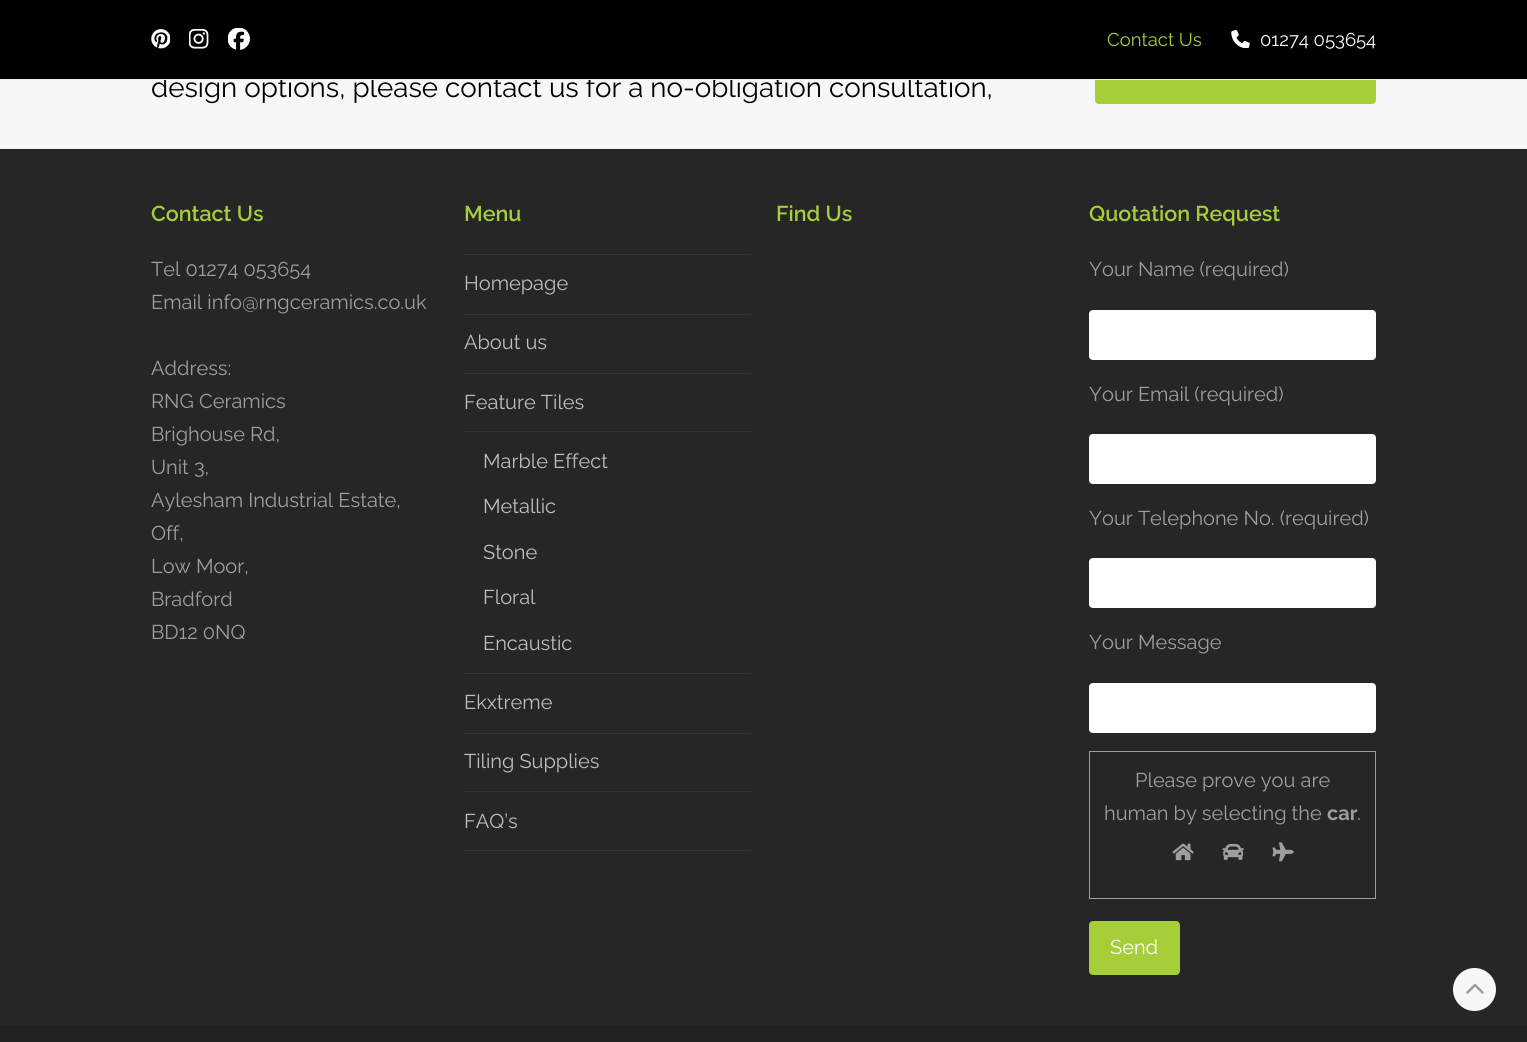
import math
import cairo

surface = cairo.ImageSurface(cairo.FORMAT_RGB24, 1527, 1042)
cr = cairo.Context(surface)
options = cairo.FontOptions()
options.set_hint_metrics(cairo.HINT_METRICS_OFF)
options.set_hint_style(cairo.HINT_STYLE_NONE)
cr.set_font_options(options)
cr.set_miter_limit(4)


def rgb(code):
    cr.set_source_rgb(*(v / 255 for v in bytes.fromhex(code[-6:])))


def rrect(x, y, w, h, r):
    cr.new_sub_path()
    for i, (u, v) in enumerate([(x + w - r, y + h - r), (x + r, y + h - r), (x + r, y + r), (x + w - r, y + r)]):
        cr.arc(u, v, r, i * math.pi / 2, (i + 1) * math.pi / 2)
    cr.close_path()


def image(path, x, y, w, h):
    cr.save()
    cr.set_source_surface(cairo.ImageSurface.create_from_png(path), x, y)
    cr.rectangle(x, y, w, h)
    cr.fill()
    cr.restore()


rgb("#f7f7f7")
cr.paint()
rgb("#a6ce39")
rrect(1095, 26, 281, 78, 4)
cr.fill()
rgb("#000000")
cr.rectangle(0, 0, 1527, 79)
cr.fill()
image("img/1.png", 151, 29, 19, 20)
image("img/2.png", 189, 29, 20, 20)
image("img/3.png", 228, 28, 22, 22)
image("img/4.png", 1231, 30, 19, 18)
for x, y, w, h, color in [
    (0, 148, 1527, 1, "#eeeeee"),
    (0, 149, 1527, 876, "#262626"),
    (464, 254, 287, 1, "#333333"),
    (464, 314, 287, 1, "#333333"),
    (464, 373, 287, 1, "#333333"),
    (464, 673, 287, 1, "#333333"),
    (464, 431, 287, 1, "#333333"),
    (464, 733, 287, 1, "#333333"),
    (464, 791, 287, 1, "#333333"),
    (464, 850, 287, 1, "#333333"),
]:
    rgb(color)
    cr.rectangle(x, y, w, h)
    cr.fill()
rgb("#ffffff")
rrect(1089, 310, 287, 50, 4)
cr.fill()
cr.rectangle(1089.5, 310.5, 286, 49)
cr.set_source_rgba(1, 1, 1, 0.06)
cr.set_line_width(1)
cr.stroke()
rgb("#ffffff")
rrect(1089, 434, 287, 50, 4)
cr.fill()
cr.rectangle(1089.5, 434.5, 286, 49)
cr.set_source_rgba(1, 1, 1, 0.06)
cr.stroke()
rgb("#ffffff")
rrect(1089, 558, 287, 50, 4)
cr.fill()
cr.rectangle(1089.5, 558.5, 286, 49)
cr.set_source_rgba(1, 1, 1, 0.06)
cr.stroke()
rgb("#ffffff")
rrect(1089, 683, 287, 50, 4)
cr.fill()
cr.rectangle(1089.5, 683.5, 286, 49)
cr.set_source_rgba(1, 1, 1, 0.06)
cr.stroke()
cr.rectangle(1089.5, 751.5, 286, 147)
rgb("#9e9e9e")
cr.stroke()
image("img/5.png", 1172, 843, 22, 18)
image("img/6.png", 1222, 843, 22, 17)
image("img/7.png", 1272, 842, 22, 20)
rgb("#a6ce39")
rrect(1089, 921, 91, 54, 4)
cr.fill()
rgb("#222222")
cr.rectangle(0, 1025, 1527, 17)
cr.fill()
rgb("#f7f7f7")
cr.arc(1474.5, 989.5, 21.5, 0, 2 * math.pi)
cr.fill()
image("img/8.png", 1466, 983, 18, 11)
cr.select_font_face("Raleway")
cr.set_font_size(18.5)
rgb("#a6ce39")
cr.move_to(1107, 46)
cr.show_text("Contact Us")
rgb("#ffffff")
cr.move_to(1260, 46)
cr.show_text("01274 053654")
cr.set_font_size(27.7)
rgb("#000000")
cr.move_to(151, 97)
cr.show_text("design options, please contact us for a no-obligation consultation,")
rgb("#eeeeee")
cr.rectangle(0, 79, 1527, 1)
cr.fill()
cr.select_font_face("Raleway SemiBold")
cr.set_font_size(21.5)
rgb("#a6ce39")
cr.move_to(151, 221)
cr.show_text("Contact Us")
cr.select_font_face("Raleway")
cr.set_font_size(20)
rgb("#9e9e9e")
for x, y, s in [
    (151, 276, "Tel 01274 053654"),
    (151, 309, "Email info@rngceramics.co.uk"),
    (151, 375, "Address:"),
    (151, 408, "RNG Ceramics"),
    (151, 441, "Brighouse Rd,"),
    (151, 474, "Unit 3,"),
    (151, 507, "Aylesham Industrial Estate,"),
    (151, 540, "Off,"),
    (151, 573, "Low Moor,"),
    (151, 606, "Bradford"),
    (151, 639, "BD12 0NQ"),
]:
    cr.move_to(x, y)
    cr.show_text(s)
cr.select_font_face("Raleway SemiBold")
cr.set_font_size(21.5)
rgb("#a6ce39")
cr.move_to(464, 221)
cr.show_text("Menu")
cr.select_font_face("Raleway")
cr.set_font_size(20)
rgb("#bdbdbd")
for x, y, s in [
    (464, 290, "Homepage"),
    (464, 349, "About us"),
    (464, 409, "Feature Tiles"),
    (483, 468, "Marble Effect"),
    (483, 513, "Metallic"),
    (483, 559, "Stone"),
    (483, 604, "Floral"),
    (483, 650, "Encaustic"),
    (464, 709, "Ekxtreme"),
    (464, 768, "Tiling Supplies"),
    (464, 828, "FAQ’s"),
]:
    cr.move_to(x, y)
    cr.show_text(s)
cr.select_font_face("Raleway SemiBold")
cr.set_font_size(21.5)
rgb("#a6ce39")
cr.move_to(776, 221)
cr.show_text("Find Us")
cr.move_to(1089, 221)
cr.show_text("Quotation Request")
cr.select_font_face("Raleway")
cr.set_font_size(20)
rgb("#9e9e9e")
for x, y, s in [
    (1089, 276, "Your Name (required)"),
    (1089, 401, "Your Email (required)"),
    (1089, 525, "Your Telephone No. (required)"),
    (1089, 649, "Your Message"),
    (1135, 787, "Please prove you are"),
    (1104, 820, "human by selecting the"),
]:
    cr.move_to(x, y)
    cr.show_text(s)
cr.select_font_face("Raleway", cairo.FONT_SLANT_NORMAL, cairo.FONT_WEIGHT_BOLD)
cr.move_to(1327, 820)
cr.show_text("car")
cr.select_font_face("Raleway")
cr.move_to(1357, 820)
cr.show_text(".")
rgb("#ffffff")
cr.move_to(1110, 954)
cr.show_text("Send")
surface.write_to_png("page.png")
